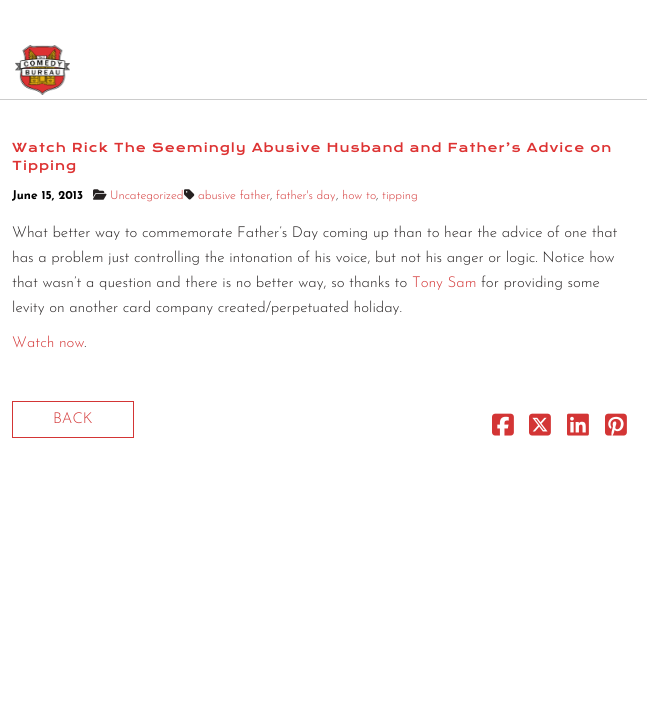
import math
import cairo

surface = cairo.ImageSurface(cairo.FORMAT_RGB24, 647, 720)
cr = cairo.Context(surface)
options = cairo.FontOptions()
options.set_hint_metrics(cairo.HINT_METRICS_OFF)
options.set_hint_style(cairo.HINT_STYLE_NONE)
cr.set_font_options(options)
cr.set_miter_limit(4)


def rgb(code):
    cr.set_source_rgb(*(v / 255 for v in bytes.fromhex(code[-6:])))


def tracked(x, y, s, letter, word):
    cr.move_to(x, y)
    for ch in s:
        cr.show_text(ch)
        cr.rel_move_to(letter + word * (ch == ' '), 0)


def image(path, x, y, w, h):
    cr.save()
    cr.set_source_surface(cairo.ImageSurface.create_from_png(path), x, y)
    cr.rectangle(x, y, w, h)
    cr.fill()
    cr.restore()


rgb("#ffffff")
cr.paint()
image("img/1.png", 15, 45, 55, 50)
rgb("#cccccc")
cr.rectangle(0, 99, 647, 1)
cr.fill()
image("img/2.png", 93, 189, 14, 11)
image("img/3.png", 184, 189, 11, 11)
cr.rectangle(12.5, 401.5, 121, 36)
rgb("#d33535")
cr.set_line_width(1)
cr.stroke()
image("img/4.png", 492, 413, 22, 23)
image("img/5.png", 529, 413, 22, 23)
image("img/6.png", 567, 413, 22, 23)
image("img/7.png", 605, 413, 22, 23)
cr.select_font_face("Krona One")
cr.set_font_size(12)
rgb("#dd3333")
tracked(12, 152, "Watch Rick The Seemingly Abusive Husband and Father’s Advice on", 1, 0)
tracked(12, 170, "Tipping", 1, 0)
cr.select_font_face("Josefin Sans", cairo.FONT_SLANT_NORMAL, cairo.FONT_WEIGHT_BOLD)
rgb("#000000")
cr.move_to(12, 199)
cr.show_text("June 15, 2013")
cr.select_font_face("Josefin Sans Light")
rgb("#d33535")
cr.move_to(110, 199)
cr.show_text("Uncategorized")
cr.move_to(198, 199)
cr.show_text("abusive father")
rgb("#252121")
cr.move_to(270, 199)
cr.show_text(",")
rgb("#d33535")
cr.move_to(276, 199)
cr.show_text("father's day")
rgb("#252121")
cr.move_to(336, 199)
cr.show_text(",")
rgb("#d33535")
cr.move_to(342, 199)
cr.show_text("how to")
rgb("#252121")
cr.move_to(376, 199)
cr.show_text(",")
rgb("#d33535")
cr.move_to(382, 199)
cr.show_text("tipping")
cr.set_font_size(15)
rgb("#252121")
for x, y, s in [
    (12, 237, "What better way to commemorate Father’s Day coming up than to hear the advice of one that"),
    (12, 262, "has a problem just controlling the intonation of his voice, but not his anger or logic. Notice how"),
    (12, 287, "that wasn’t a question and there is no better way, so thanks to"),
]:
    cr.move_to(x, y)
    cr.show_text(s)
rgb("#d33535")
cr.move_to(412, 287)
cr.show_text("Tony Sam")
rgb("#252121")
cr.move_to(481, 287)
cr.show_text("for providing some")
cr.move_to(12, 312)
cr.show_text("levity on another card company created/perpetuated holiday.")
rgb("#d33535")
cr.move_to(12, 347)
cr.show_text("Watch now")
rgb("#252121")
cr.move_to(84, 347)
cr.show_text(".")
rgb("#d33535")
cr.move_to(53, 423)
cr.show_text("BACK")
surface.write_to_png("page.png")
